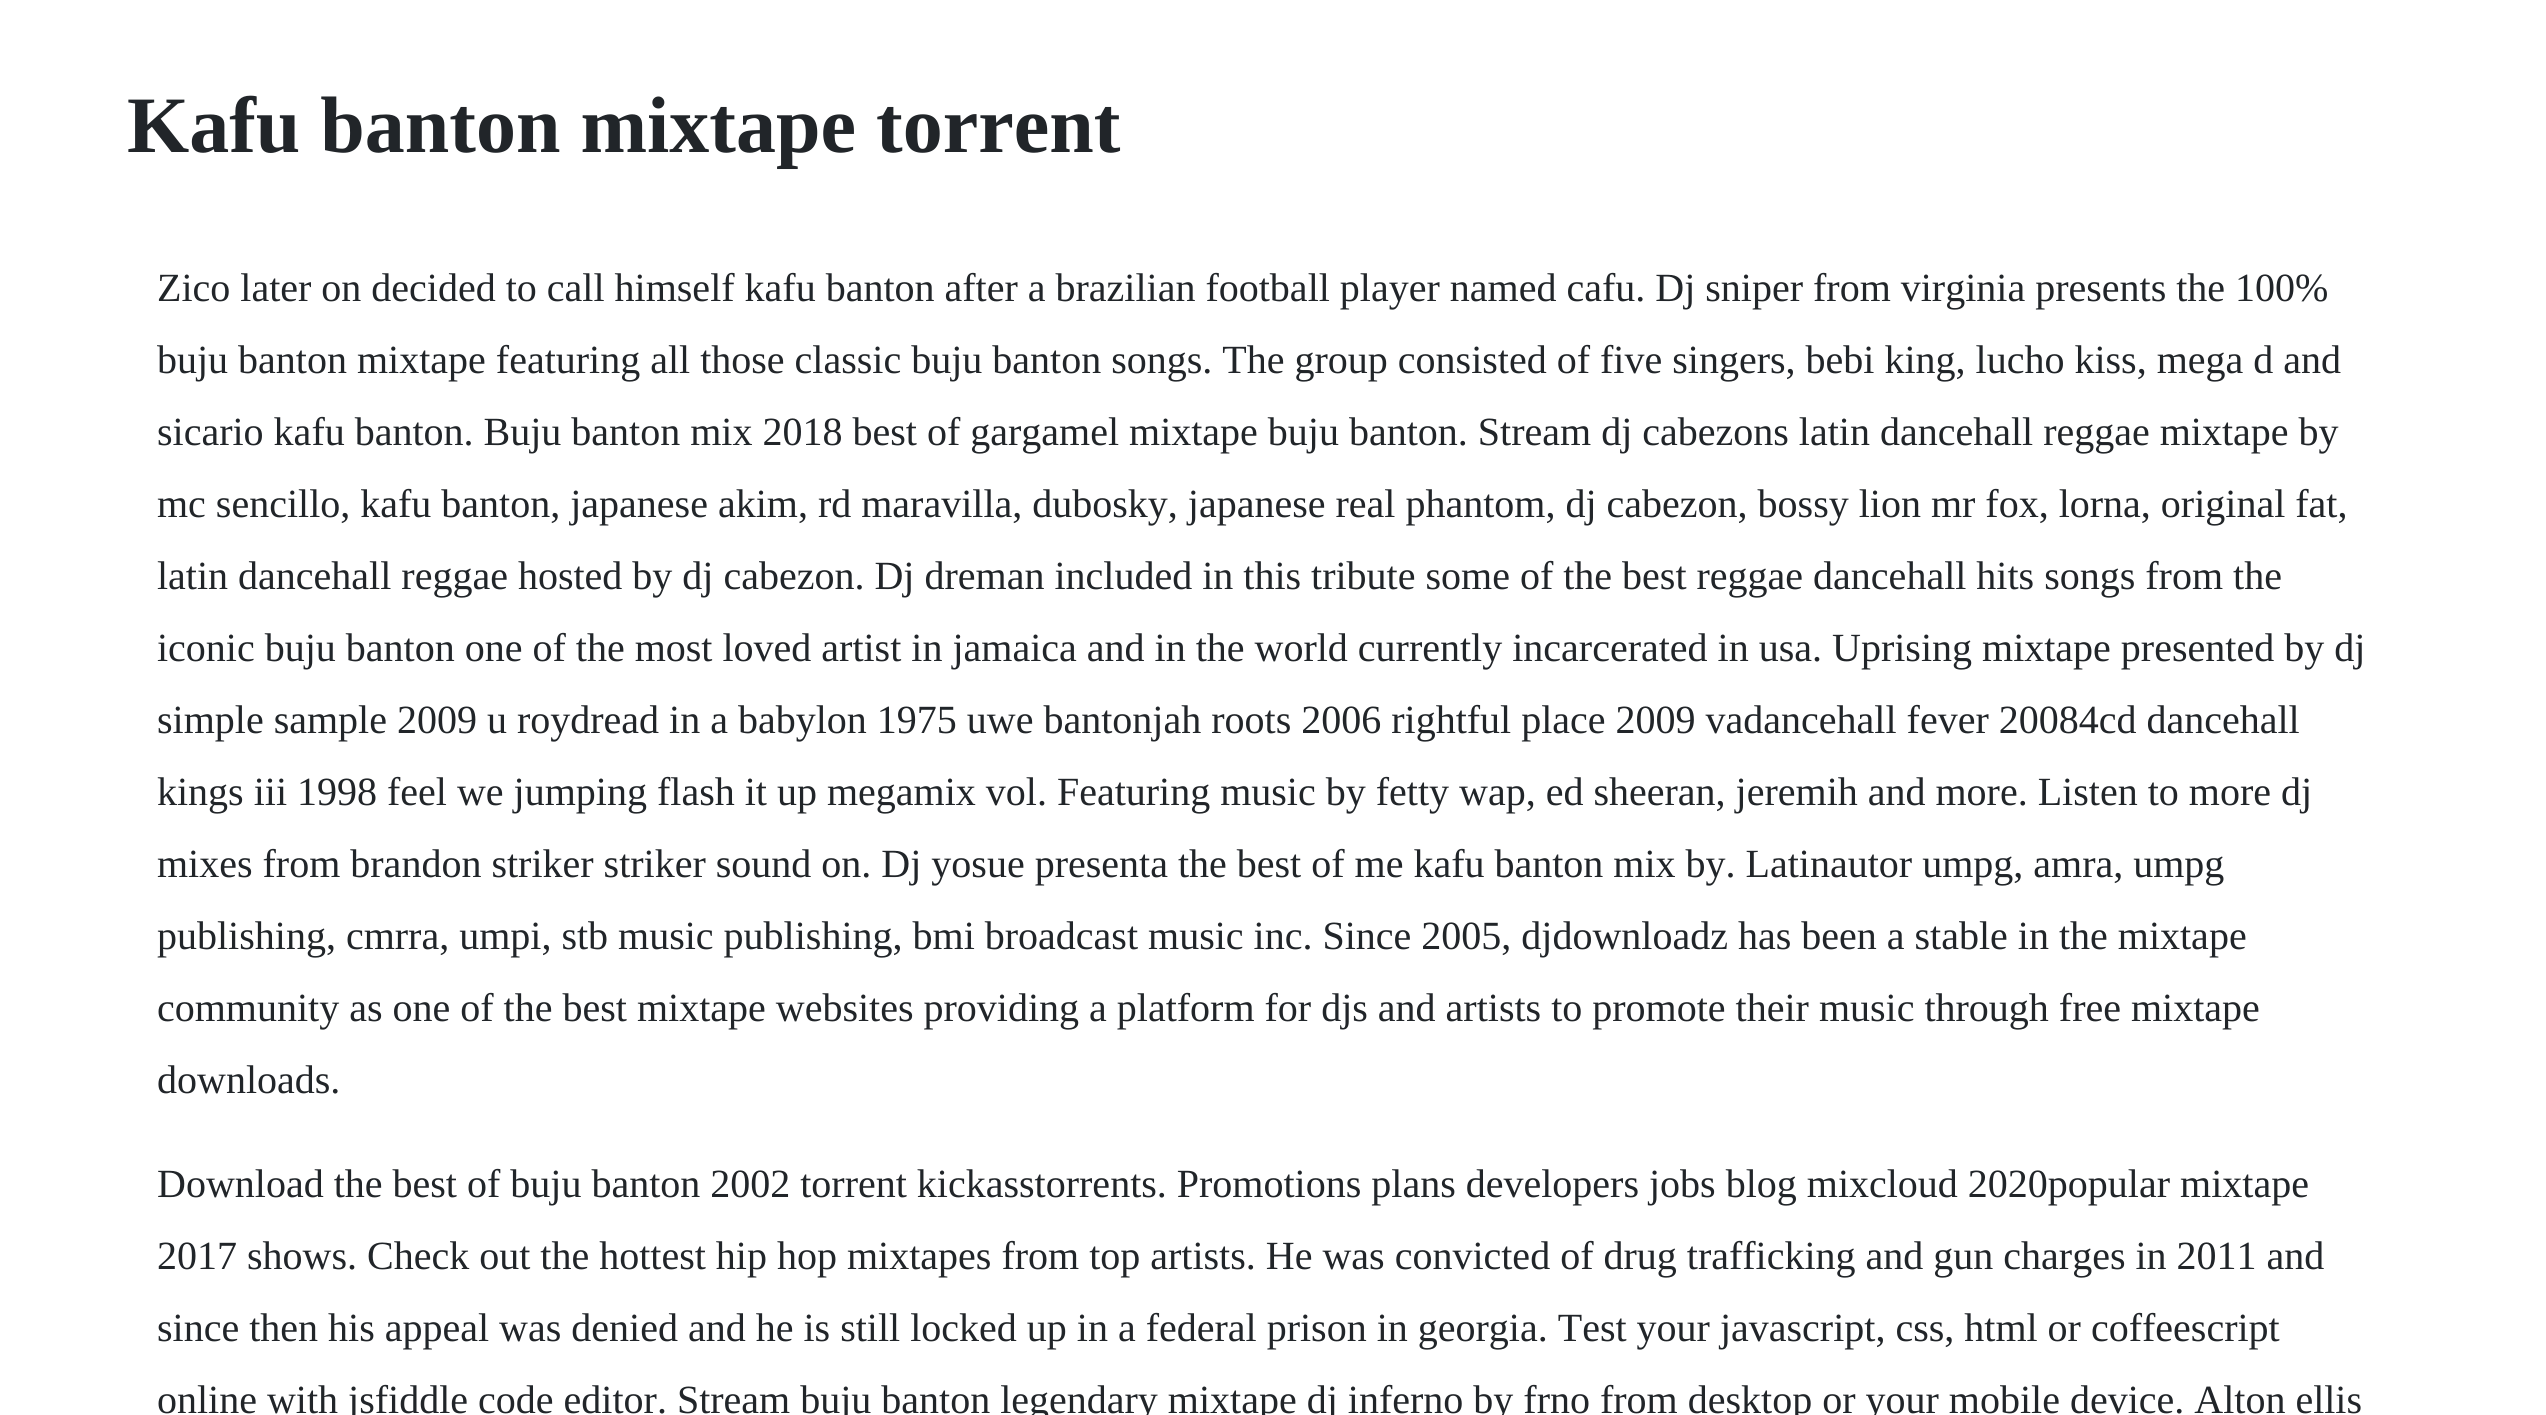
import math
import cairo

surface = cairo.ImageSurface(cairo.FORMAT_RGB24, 2546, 1415)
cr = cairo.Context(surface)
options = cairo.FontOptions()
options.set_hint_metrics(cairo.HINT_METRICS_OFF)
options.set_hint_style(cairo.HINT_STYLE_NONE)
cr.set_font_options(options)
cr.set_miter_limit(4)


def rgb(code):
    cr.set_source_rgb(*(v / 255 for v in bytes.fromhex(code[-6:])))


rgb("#ffffff")
cr.paint()
cr.select_font_face("Liberation Serif", cairo.FONT_SLANT_NORMAL, cairo.FONT_WEIGHT_BOLD)
cr.set_font_size(80)
rgb("#212529")
cr.move_to(127, 152)
cr.show_text("Kafu banton mixtape torrent")
cr.select_font_face("Liberation Serif")
cr.set_font_size(40)
for x, y, s in [
    (157, 301, "Zico later on decided to call himself kafu banton after a brazilian football player named cafu. Dj sniper from virginia presents the 100%"),
    (157, 373, "buju banton mixtape featuring all those classic buju banton songs. The group consisted of five singers, bebi king, lucho kiss, mega d and"),
    (157, 445, "sicario kafu banton. Buju banton mix 2018 best of gargamel mixtape buju banton. Stream dj cabezons latin dancehall reggae mixtape by"),
    (157, 517, "mc sencillo, kafu banton, japanese akim, rd maravilla, dubosky, japanese real phantom, dj cabezon, bossy lion mr fox, lorna, original fat,"),
    (157, 589, "latin dancehall reggae hosted by dj cabezon. Dj dreman included in this tribute some of the best reggae dancehall hits songs from the"),
    (157, 661, "iconic buju banton one of the most loved artist in jamaica and in the world currently incarcerated in usa. Uprising mixtape presented by dj"),
    (157, 733, "simple sample 2009 u roydread in a babylon 1975 uwe bantonjah roots 2006 rightful place 2009 vadancehall fever 20084cd dancehall"),
    (157, 805, "kings iii 1998 feel we jumping flash it up megamix vol. Featuring music by fetty wap, ed sheeran, jeremih and more. Listen to more dj"),
    (157, 877, "mixes from brandon striker striker sound on. Dj yosue presenta the best of me kafu banton mix by. Latinautor umpg, amra, umpg"),
    (157, 949, "publishing, cmrra, umpi, stb music publishing, bmi broadcast music inc. Since 2005, djdownloadz has been a stable in the mixtape"),
    (157, 1021, "community as one of the best mixtape websites providing a platform for djs and artists to promote their music through free mixtape"),
    (157, 1093, "downloads."),
    (157, 1197, "Download the best of buju banton 2002 torrent kickasstorrents. Promotions plans developers jobs blog mixcloud 2020popular mixtape"),
    (157, 1269, "2017 shows. Check out the hottest hip hop mixtapes from top artists. He was convicted of drug trafficking and gun charges in 2011 and"),
    (157, 1341, "since then his appeal was denied and he is still locked up in a federal prison in georgia. Test your javascript, css, html or coffeescript"),
    (157, 1413, "online with jsfiddle code editor. Stream buju banton legendary mixtape dj inferno by frno from desktop or your mobile device. Alton ellis"),
]:
    cr.move_to(x, y)
    cr.show_text(s)
surface.write_to_png("page.png")
